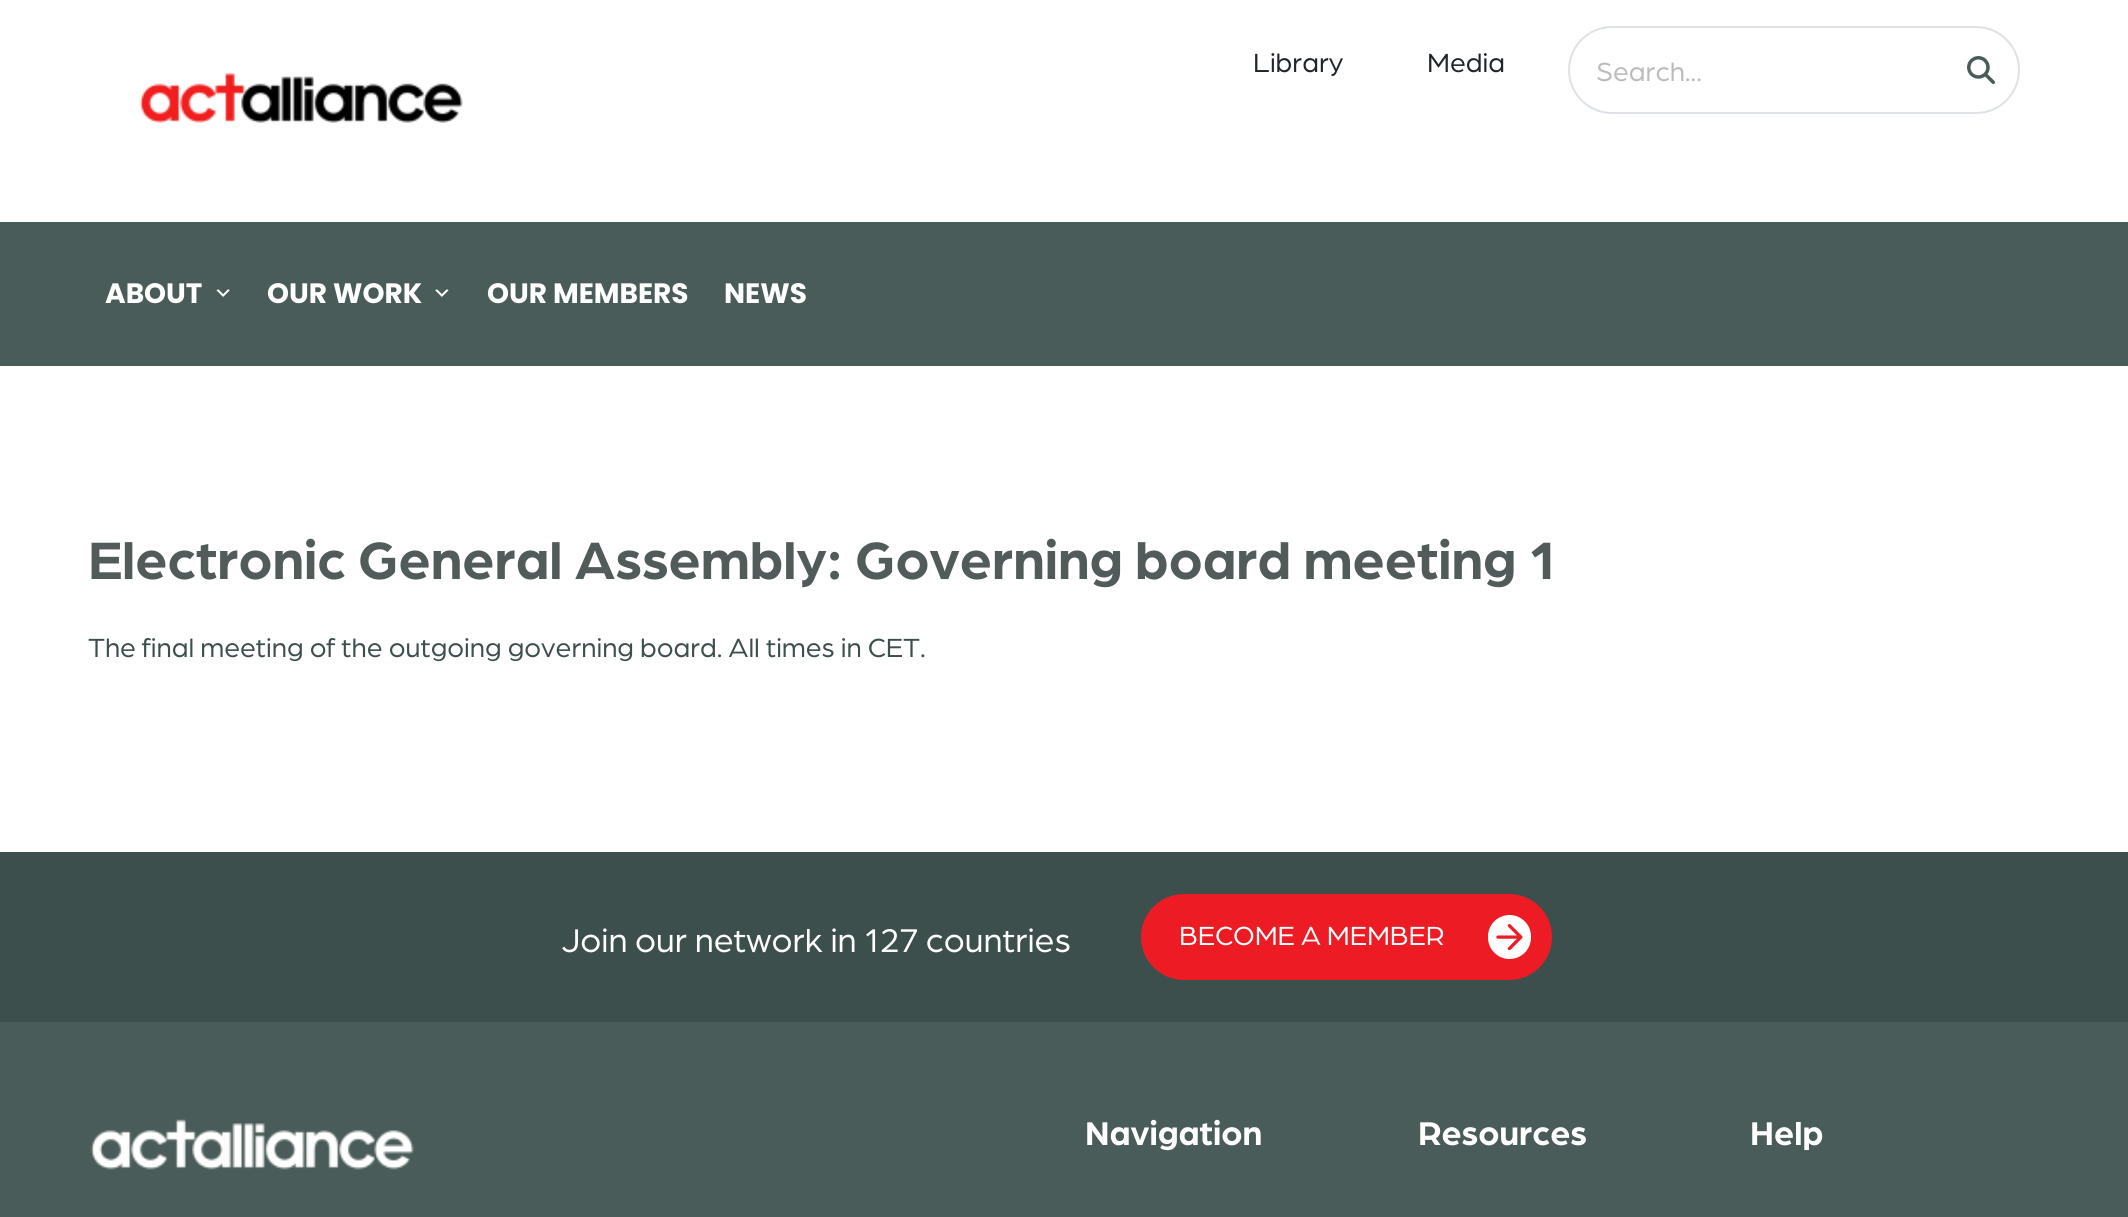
import math
import cairo

surface = cairo.ImageSurface(cairo.FORMAT_RGB24, 2128, 1217)
cr = cairo.Context(surface)
options = cairo.FontOptions()
options.set_hint_metrics(cairo.HINT_METRICS_OFF)
options.set_hint_style(cairo.HINT_STYLE_NONE)
cr.set_font_options(options)
cr.set_miter_limit(4)


def rgb(code):
    cr.set_source_rgb(*(v / 255 for v in bytes.fromhex(code[-6:])))


def rrect(x, y, w, h, r):
    cr.new_sub_path()
    for i, (u, v) in enumerate([(x + w - r, y + h - r), (x + r, y + h - r), (x + r, y + r), (x + w - r, y + r)]):
        cr.arc(u, v, r, i * math.pi / 2, (i + 1) * math.pi / 2)
    cr.close_path()


def image(path, x, y, w, h):
    cr.save()
    cr.set_source_surface(cairo.ImageSurface.create_from_png(path), x, y)
    cr.rectangle(x, y, w, h)
    cr.fill()
    cr.restore()


rgb("#ffffff")
cr.paint()
image("img/1.png", 139, 73, 324, 50)
rrect(1569, 27, 450, 86, 43)
rgb("#dee2e6")
cr.stroke()
image("img/2.png", 1967, 56, 28, 28)
rgb("#4a5c59")
cr.rectangle(0, 222, 2128, 144)
cr.fill()
image("img/3.png", 216, 289, 14, 8)
image("img/4.png", 435, 289, 14, 8)
rgb("#3d4f4d")
cr.rectangle(0, 852, 2128, 170)
cr.fill()
rgb("#ed1c24")
rrect(1143, 896, 407, 82, 41)
cr.fill_preserve()
cr.set_line_width(4)
cr.stroke()
rgb("#ffffff")
rrect(1488, 915, 43, 44, 21.5)
cr.fill()
image("img/5.png", 1496, 924, 27, 26)
rgb("#4a5c59")
cr.rectangle(0, 1022, 2128, 195)
cr.fill()
image("img/6.png", 90, 1119, 324, 51)
cr.select_font_face("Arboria")
cr.set_font_size(28)
rgb("#212529")
cr.move_to(1253, 72)
cr.show_text("Library")
cr.move_to(1427, 72)
cr.show_text("Media")
rgb("#bbbbbb")
cr.move_to(1596, 81)
cr.show_text("Search...")
cr.select_font_face("Poppins", cairo.FONT_SLANT_NORMAL, cairo.FONT_WEIGHT_BOLD)
rgb("#ffffff")
for x, y, s in [
    (105, 303, "ABOUT"),
    (267, 303, "OUR WORK"),
    (487, 303, "OUR MEMBERS"),
    (724, 303, "NEWS"),
]:
    cr.move_to(x, y)
    cr.show_text(s)
cr.select_font_face("Arboria", cairo.FONT_SLANT_NORMAL, cairo.FONT_WEIGHT_BOLD)
cr.set_font_size(56)
rgb("#505b5a")
cr.move_to(88, 579)
cr.show_text("Electronic General Assembly: Governing board meeting 1")
cr.select_font_face("Arboria")
cr.set_font_size(28)
rgb("#3d4f4d")
cr.move_to(88, 657)
cr.show_text("The final meeting of the outgoing governing board. All times in CET.")
cr.set_font_size(35)
rgb("#ffffff")
cr.move_to(561, 952)
cr.show_text("Join our network in 127 countries")
cr.set_font_size(28)
cr.move_to(1179, 945)
cr.show_text("BECOME A MEMBER")
cr.select_font_face("Arboria", cairo.FONT_SLANT_NORMAL, cairo.FONT_WEIGHT_BOLD)
cr.set_font_size(35)
for x, y, s in [
    (1085, 1145, "Navigation"),
    (1418, 1145, "Resources"),
    (1750, 1145, "Help"),
]:
    cr.move_to(x, y)
    cr.show_text(s)
surface.write_to_png("page.png")
